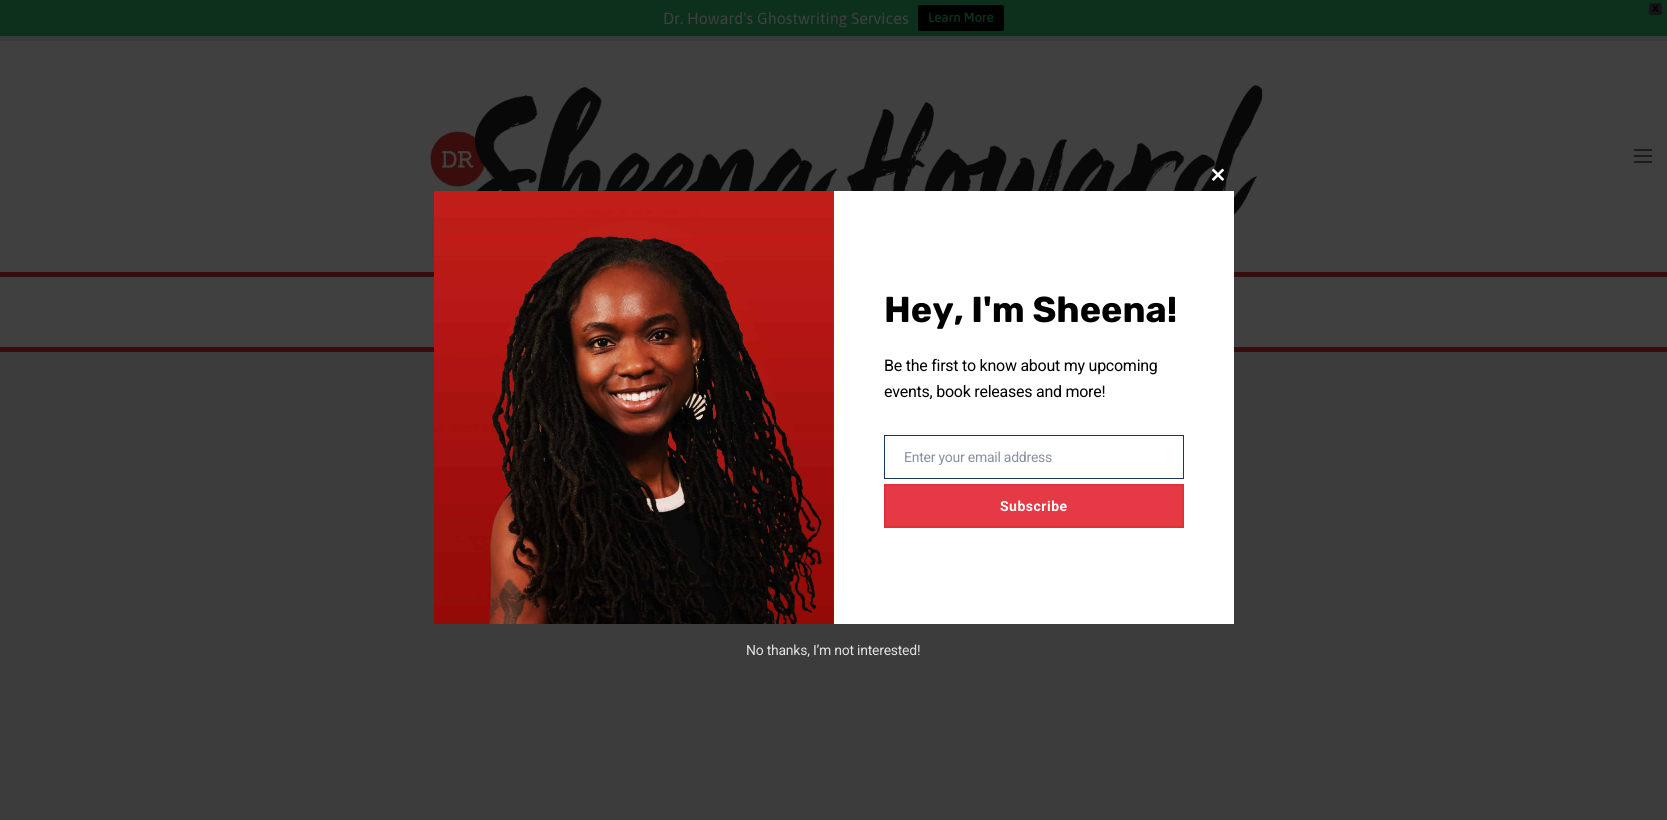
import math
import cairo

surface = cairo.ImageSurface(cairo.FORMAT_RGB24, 1667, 820)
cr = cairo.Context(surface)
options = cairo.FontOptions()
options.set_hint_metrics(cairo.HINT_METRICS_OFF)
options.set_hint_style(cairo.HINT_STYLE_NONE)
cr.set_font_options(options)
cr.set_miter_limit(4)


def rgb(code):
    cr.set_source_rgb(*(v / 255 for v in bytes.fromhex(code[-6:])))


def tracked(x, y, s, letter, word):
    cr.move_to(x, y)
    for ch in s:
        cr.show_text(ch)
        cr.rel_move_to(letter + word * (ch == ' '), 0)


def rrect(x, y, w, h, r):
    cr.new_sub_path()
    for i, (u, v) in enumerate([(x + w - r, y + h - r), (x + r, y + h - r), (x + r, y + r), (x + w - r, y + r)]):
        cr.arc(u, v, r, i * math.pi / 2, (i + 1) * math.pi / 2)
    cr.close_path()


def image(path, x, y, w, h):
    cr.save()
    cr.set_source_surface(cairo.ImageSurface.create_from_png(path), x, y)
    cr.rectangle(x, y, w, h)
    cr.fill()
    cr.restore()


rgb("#3c3c3c")
cr.paint()
rgb("#404040")
cr.rectangle(0, 41, 1667, 306)
cr.fill()
rgb("#0d301d")
cr.rectangle(0, 0, 1667, 36)
cr.fill()
rgb("#151515")
rrect(1649.5, 3.5, 12, 11, 1.5)
cr.fill_preserve()
cr.set_line_width(1)
cr.stroke()
rgb("#000000")
rrect(918, 5, 86, 26, 2)
cr.fill()
for x, y, w, h, color in [
    (0, 36, 1667, 5, "#393a3a"),
    (0, 347, 1667, 5, "#370d0d"),
    (0, 272, 1667, 5, "#370d0d"),
]:
    rgb(color)
    cr.rectangle(x, y, w, h)
    cr.fill()
image("img/1.png", 430, 85, 833, 130)
for x, y, w, h, color in [
    (1634, 149, 18, 2, "#1b1b1b"),
    (1634, 155, 18, 2, "#1b1b1b"),
    (1634, 161, 18, 2, "#1b1b1b"),
]:
    rgb(color)
    cr.rectangle(x, y, w, h)
    cr.fill()
image("img/2.png", 1212, 168, 12, 13)
rgb("#ffffff")
cr.rectangle(833, 191, 401, 433)
cr.fill()
image("img/3.png", 434, 191, 400, 433)
cr.rectangle(884.5, 435.5, 299, 43)
rgb("#1d3557")
cr.stroke()
rgb("#e63946")
cr.rectangle(885, 485, 298, 42)
cr.fill_preserve()
rgb("#dd3333")
cr.set_line_width(2)
cr.stroke()
cr.select_font_face("Liberation Sans", cairo.FONT_SLANT_NORMAL, cairo.FONT_WEIGHT_BOLD)
cr.set_font_size(10)
rgb("#000000")
cr.move_to(1652, 12)
cr.show_text("X")
cr.select_font_face("Asap")
cr.set_font_size(16)
rgb("#404040")
cr.move_to(663, 24)
cr.show_text("Dr. Howard's Ghostwriting Services")
cr.select_font_face("Asap", cairo.FONT_SLANT_NORMAL, cairo.FONT_WEIGHT_BOLD)
cr.set_font_size(13)
rgb("#0d301d")
cr.move_to(928, 22)
cr.show_text("Learn More")
cr.select_font_face("Rubik Light")
cr.set_font_size(36)
rgb("#000000")
cr.move_to(884, 322)
cr.show_text("Hey, I'm Sheena!")
cr.select_font_face("Roboto")
cr.set_font_size(16)
tracked(884, 371, "Be the first to know about my upcoming", -0.25, 0)
tracked(884, 397, "events, book releases and more!", -0.25, 0)
cr.set_font_size(14)
rgb("#8891a0")
tracked(904, 462, "Enter your email address", -0.25, 0)
cr.select_font_face("Roboto", cairo.FONT_SLANT_NORMAL, cairo.FONT_WEIGHT_BOLD)
rgb("#ffffff")
tracked(1000, 511, "Subscribe", 0.5, 0)
cr.select_font_face("Roboto")
rgb("#e1e1e1")
tracked(746, 655, "No thanks, I’m not interested!", -0.25, 0)
surface.write_to_png("page.png")
